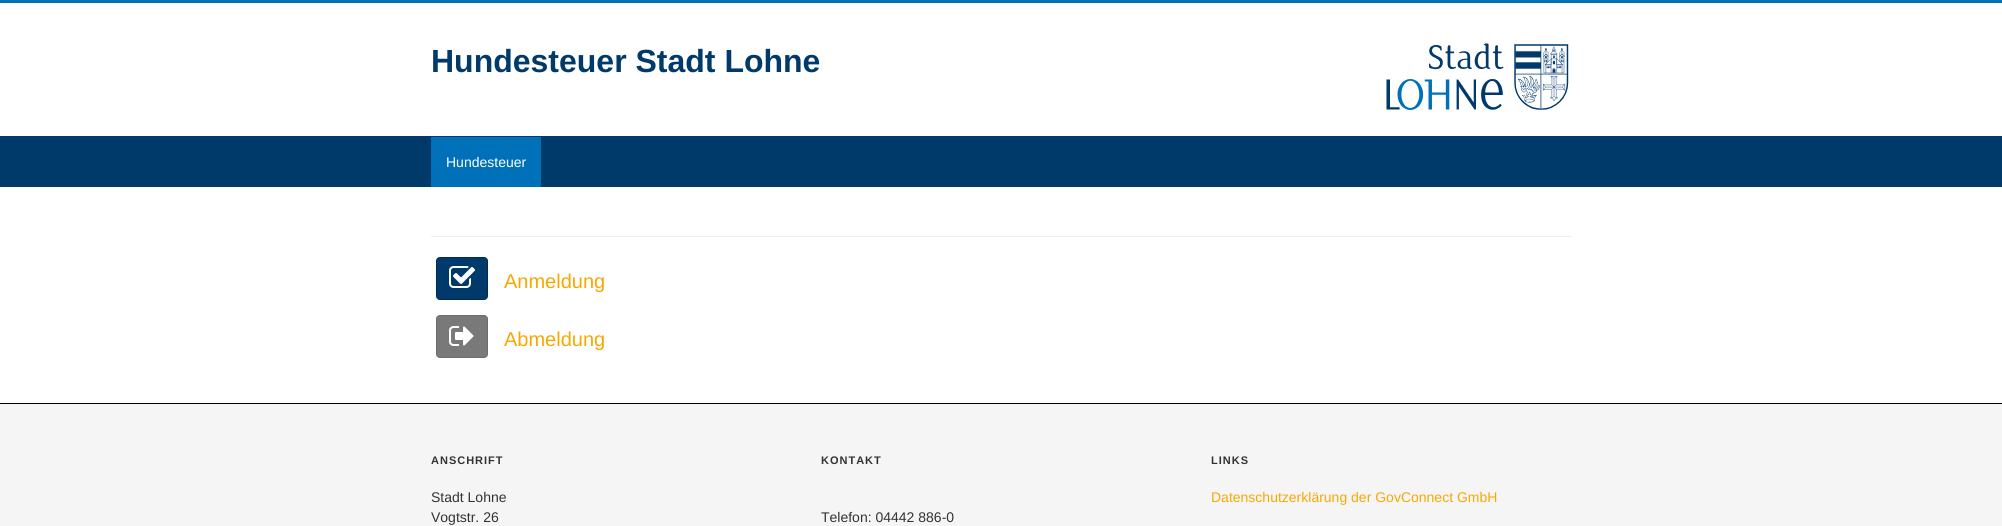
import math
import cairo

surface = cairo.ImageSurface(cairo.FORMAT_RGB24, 2002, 526)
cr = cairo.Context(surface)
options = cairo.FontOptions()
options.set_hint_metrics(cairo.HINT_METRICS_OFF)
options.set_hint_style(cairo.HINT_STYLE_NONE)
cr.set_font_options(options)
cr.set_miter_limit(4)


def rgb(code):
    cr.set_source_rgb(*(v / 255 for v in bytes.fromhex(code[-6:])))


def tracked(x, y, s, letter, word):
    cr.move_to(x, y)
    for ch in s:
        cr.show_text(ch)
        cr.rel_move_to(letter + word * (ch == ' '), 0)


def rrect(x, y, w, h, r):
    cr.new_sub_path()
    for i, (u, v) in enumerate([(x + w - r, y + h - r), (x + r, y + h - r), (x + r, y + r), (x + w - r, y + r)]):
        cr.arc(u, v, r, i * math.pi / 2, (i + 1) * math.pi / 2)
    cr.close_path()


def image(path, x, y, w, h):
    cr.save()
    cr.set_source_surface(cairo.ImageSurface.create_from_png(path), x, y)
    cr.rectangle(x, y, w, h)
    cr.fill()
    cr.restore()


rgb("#f5f5f5")
cr.paint()
for x, y, w, h, color in [
    (0, 3, 2002, 133, "#ffffff"),
    (0, 0, 2002, 3, "#0071b9"),
    (0, 136, 2002, 51, "#003a6b"),
]:
    rgb(color)
    cr.rectangle(x, y, w, h)
    cr.fill()
image("img/1.png", 1386, 43, 183, 67)
for x, y, w, h, color in [
    (431, 137, 110, 50, "#0071b9"),
    (0, 187, 2002, 216, "#ffffff"),
    (431, 236, 1140, 1, "#eeeeee"),
]:
    rgb(color)
    cr.rectangle(x, y, w, h)
    cr.fill()
rgb("#003a6b")
rrect(436.5, 257.5, 51, 42, 3.5)
cr.fill_preserve()
rgb("#002c52")
cr.set_line_width(1)
cr.stroke()
image("img/2.png", 449, 266, 26, 22)
rgb("#797979")
rrect(436.5, 315.5, 51, 42, 3.5)
cr.fill_preserve()
rgb("#6c6c6c")
cr.stroke()
image("img/3.png", 449, 326, 25, 20)
rgb("#000000")
cr.rectangle(0, 403, 2002, 1)
cr.fill()
cr.select_font_face("Liberation Sans", cairo.FONT_SLANT_NORMAL, cairo.FONT_WEIGHT_BOLD)
cr.set_font_size(32)
rgb("#003a6b")
cr.move_to(431, 72)
cr.show_text("Hundesteuer Stadt Lohne")
cr.select_font_face("Liberation Sans")
cr.set_font_size(14)
rgb("#ffffff")
cr.move_to(446, 167)
cr.show_text("Hundesteuer")
cr.set_font_size(20)
rgb("#f7a800")
cr.move_to(504, 288)
cr.show_text("Anmeldung")
cr.move_to(504, 346)
cr.show_text("Abmeldung")
cr.select_font_face("Liberation Sans", cairo.FONT_SLANT_NORMAL, cairo.FONT_WEIGHT_BOLD)
cr.set_font_size(11)
rgb("#333333")
tracked(431, 464, "ANSCHRIFT", 1, 0)
cr.select_font_face("Liberation Sans")
cr.set_font_size(14)
cr.move_to(431, 502)
cr.show_text("Stadt Lohne")
cr.move_to(431, 522)
cr.show_text("Vogtstr. 26")
cr.select_font_face("Liberation Sans", cairo.FONT_SLANT_NORMAL, cairo.FONT_WEIGHT_BOLD)
cr.set_font_size(11)
tracked(821, 464, "KONTAKT", 1, 0)
cr.select_font_face("Liberation Sans")
cr.set_font_size(14)
cr.move_to(821, 522)
cr.show_text("Telefon: 04442 886-0")
cr.select_font_face("Liberation Sans", cairo.FONT_SLANT_NORMAL, cairo.FONT_WEIGHT_BOLD)
cr.set_font_size(11)
tracked(1211, 464, "LINKS", 1, 0)
cr.select_font_face("Liberation Sans")
cr.set_font_size(14)
rgb("#f7a800")
cr.move_to(1211, 502)
cr.show_text("Datenschutzerklärung der GovConnect GmbH")
surface.write_to_png("page.png")
